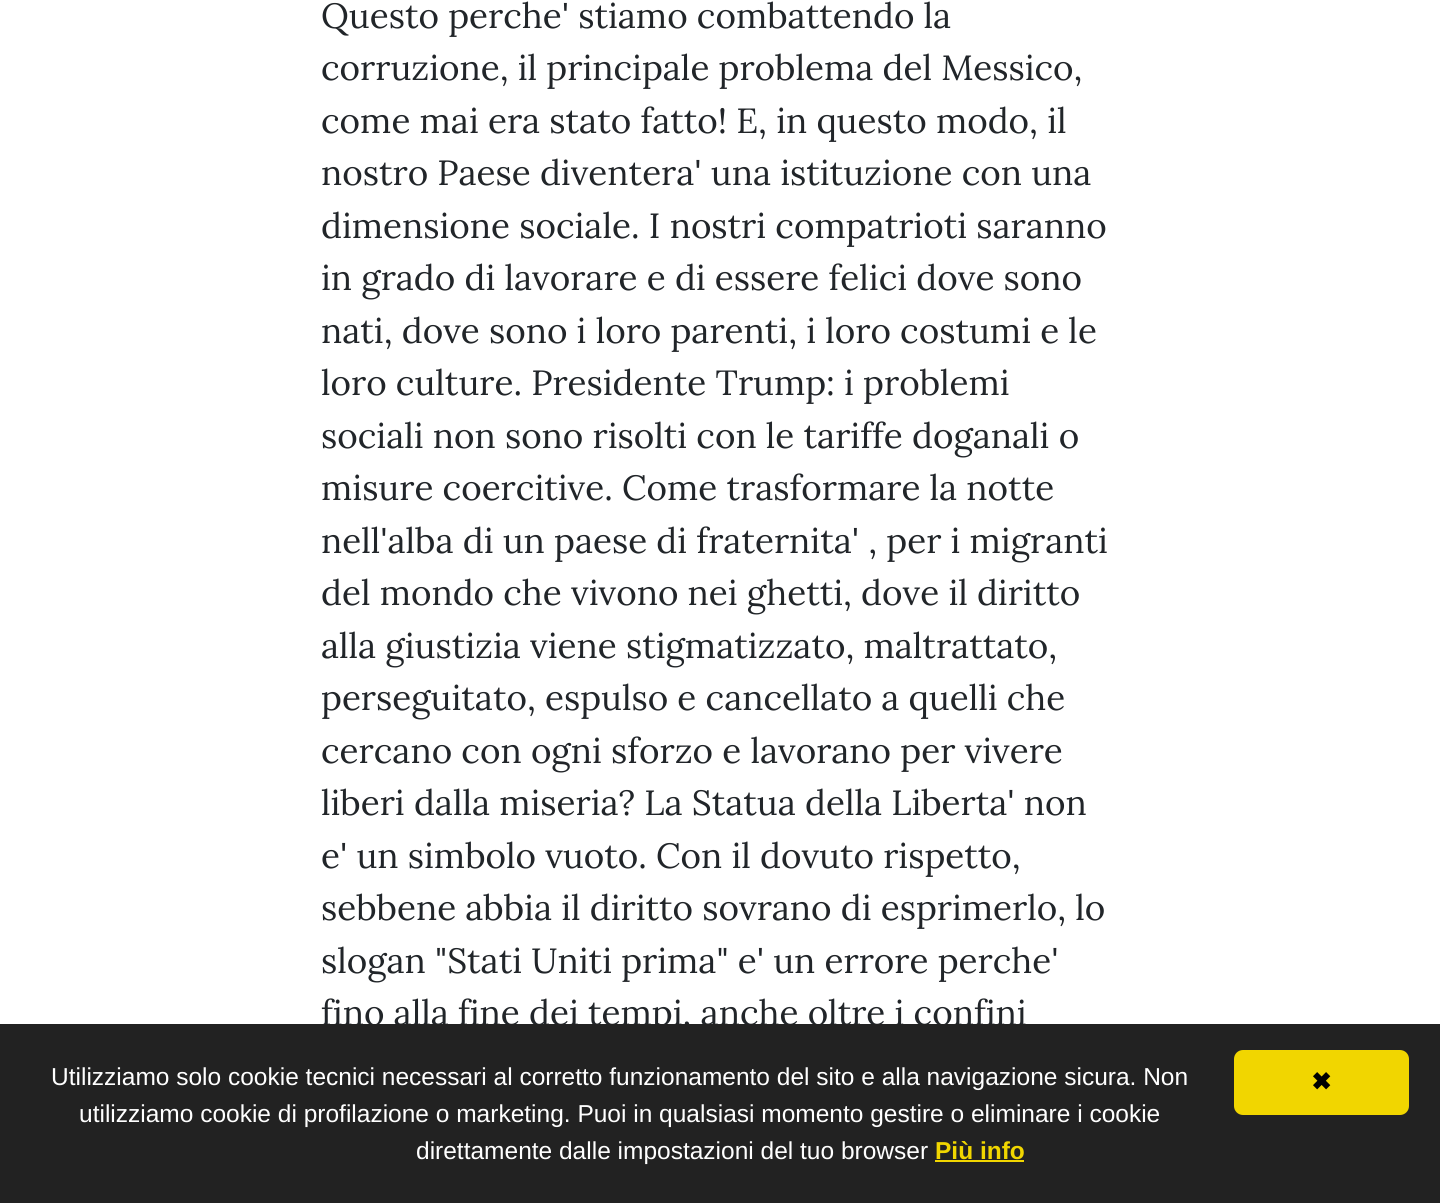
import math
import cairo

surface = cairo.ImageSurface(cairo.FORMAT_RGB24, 1440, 1203)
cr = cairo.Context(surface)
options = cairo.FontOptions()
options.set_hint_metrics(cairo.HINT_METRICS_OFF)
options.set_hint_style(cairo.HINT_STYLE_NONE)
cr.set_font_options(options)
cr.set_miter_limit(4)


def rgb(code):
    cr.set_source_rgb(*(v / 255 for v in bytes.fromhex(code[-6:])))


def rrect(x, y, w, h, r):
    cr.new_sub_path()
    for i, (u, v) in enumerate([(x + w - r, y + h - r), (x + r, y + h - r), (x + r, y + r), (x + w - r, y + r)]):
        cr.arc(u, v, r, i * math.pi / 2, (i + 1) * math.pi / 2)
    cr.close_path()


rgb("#ffffff")
cr.paint()
cr.select_font_face("Lora")
cr.set_font_size(35)
rgb("#212529")
for x, y, s in [
    (321, 28, "Questo perche' stiamo combattendo la"),
    (321, 80, "corruzione, il principale problema del Messico,"),
    (321, 133, "come mai era stato fatto! E, in questo modo, il"),
    (321, 185, "nostro Paese diventera' una istituzione con una"),
    (321, 238, "dimensione sociale. I nostri compatrioti saranno"),
    (321, 290, "in grado di lavorare e di essere felici dove sono"),
    (321, 343, "nati, dove sono i loro parenti, i loro costumi e le"),
    (321, 395, "loro culture. Presidente Trump: i problemi"),
    (321, 448, "sociali non sono risolti con le tariffe doganali o"),
    (321, 500, "misure coercitive. Come trasformare la notte"),
    (321, 553, "nell'alba di un paese di fraternita' , per i migranti"),
    (321, 605, "del mondo che vivono nei ghetti, dove il diritto"),
    (321, 658, "alla giustizia viene stigmatizzato, maltrattato,"),
    (321, 710, "perseguitato, espulso e cancellato a quelli che"),
    (321, 763, "cercano con ogni sforzo e lavorano per vivere"),
    (321, 815, "liberi dalla miseria? La Statua della Liberta' non"),
    (321, 868, "e' un simbolo vuoto. Con il dovuto rispetto,"),
    (321, 920, "sebbene abbia il diritto sovrano di esprimerlo, lo"),
    (321, 973, "slogan \"Stati Uniti prima\" e' un errore perche'"),
    (321, 1025, "fino alla fine dei tempi, anche oltre i confini"),
]:
    cr.move_to(x, y)
    cr.show_text(s)
rgb("#222222")
cr.rectangle(0, 1024, 1440, 179)
cr.fill()
cr.select_font_face("Liberation Sans")
cr.set_font_size(24.5)
rgb("#ffffff")
for x, y, s in [
    (51, 1085, "Utilizziamo solo cookie tecnici necessari al corretto funzionamento del sito e alla navigazione sicura. Non"),
    (79, 1122, "utilizziamo cookie di profilazione o marketing. Puoi in qualsiasi momento gestire o eliminare i cookie"),
    (416, 1159, "direttamente dalle impostazioni del tuo browser"),
]:
    cr.move_to(x, y)
    cr.show_text(s)
cr.select_font_face("Liberation Sans", cairo.FONT_SLANT_NORMAL, cairo.FONT_WEIGHT_BOLD)
rgb("#f1d600")
cr.move_to(935, 1159)
cr.show_text("Più info")
cr.rectangle(935, 1160, 89, 2)
cr.fill()
rrect(1234, 1050, 175, 65, 9)
cr.fill()
cr.select_font_face("DejaVu Sans", cairo.FONT_SLANT_NORMAL, cairo.FONT_WEIGHT_BOLD)
rgb("#000000")
cr.move_to(1311, 1090)
cr.show_text("✖")
surface.write_to_png("page.png")
